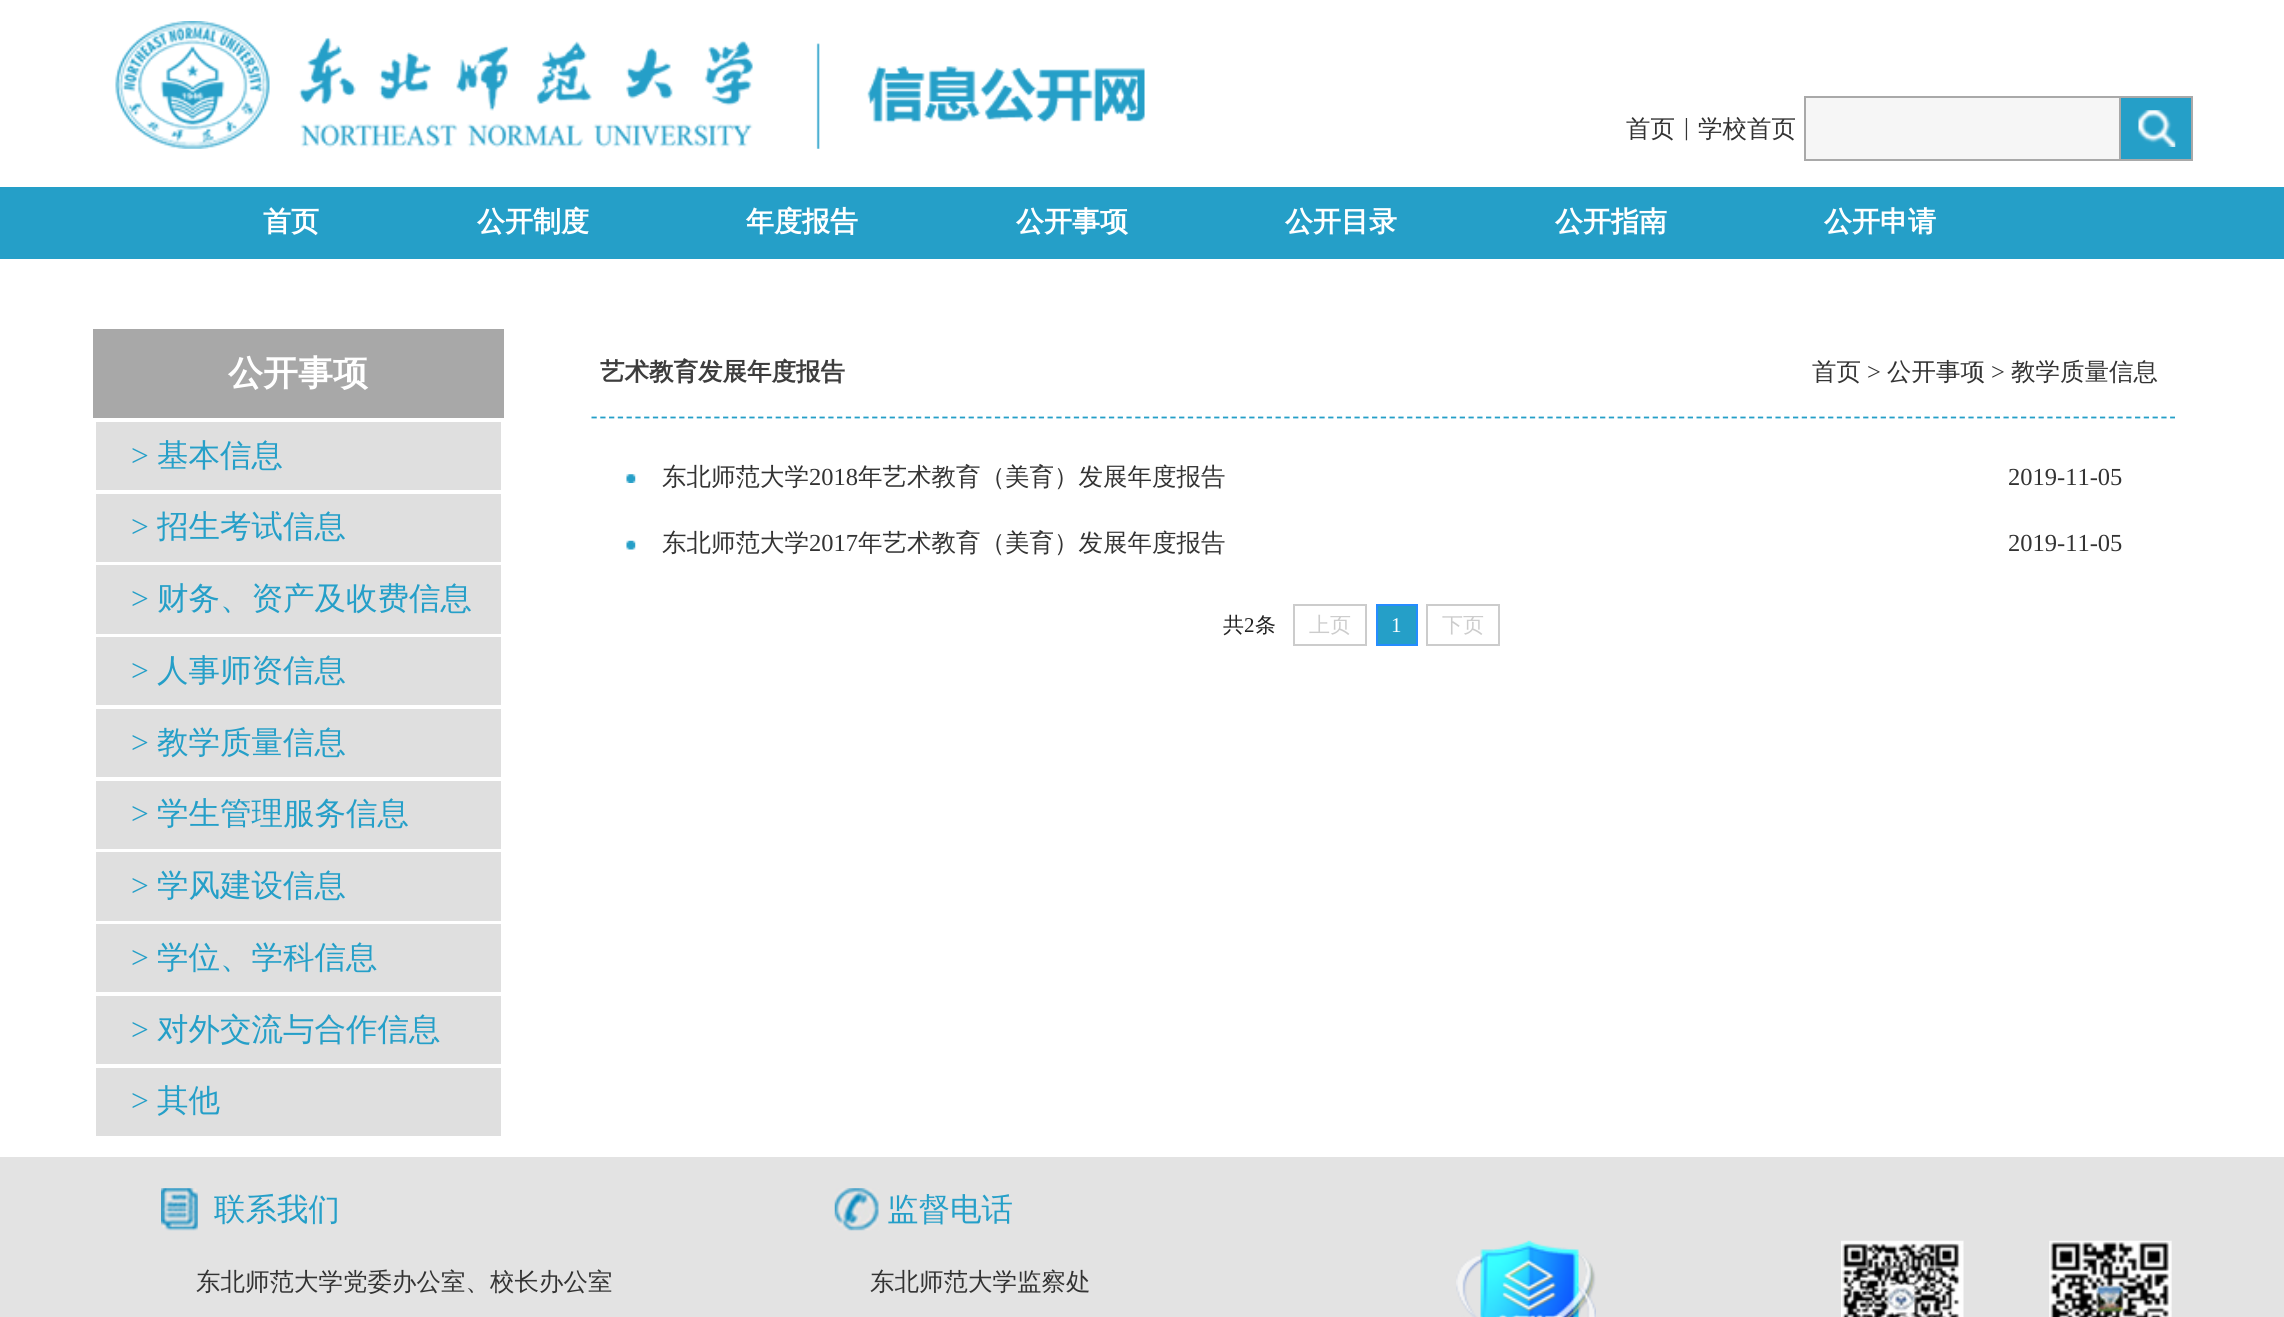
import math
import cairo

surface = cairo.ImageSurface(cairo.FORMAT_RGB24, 2284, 1317)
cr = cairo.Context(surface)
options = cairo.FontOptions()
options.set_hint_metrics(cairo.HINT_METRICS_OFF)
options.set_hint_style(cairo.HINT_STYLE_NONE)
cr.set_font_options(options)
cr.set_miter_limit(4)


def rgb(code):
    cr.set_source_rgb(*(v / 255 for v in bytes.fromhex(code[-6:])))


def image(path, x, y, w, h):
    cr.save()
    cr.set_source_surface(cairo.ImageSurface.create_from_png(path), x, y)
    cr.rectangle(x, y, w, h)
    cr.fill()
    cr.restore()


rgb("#ffffff")
cr.paint()
image("img/1.png", 115, 21, 1030, 128)
rgb("#f6f6f6")
cr.rectangle(1805, 97, 315, 63)
cr.fill_preserve()
rgb("#a9a9a9")
cr.stroke()
rgb("#259fc8")
cr.rectangle(2121, 98, 70, 61)
cr.fill()
image("img/2.png", 2138, 110, 38, 37)
for x, y, w, h, color in [
    (2121, 96, 72, 2, "#a9a9a9"),
    (2191, 96, 2, 65, "#a9a9a9"),
    (2121, 159, 72, 2, "#a9a9a9"),
    (0, 187, 2284, 72, "#259fc8"),
    (93, 329, 411, 89, "#a8a8a8"),
    (96, 422, 405, 68, "#dfdfdf"),
    (96, 494, 405, 68, "#dfdfdf"),
    (96, 565, 405, 69, "#dfdfdf"),
    (96, 637, 405, 68, "#dfdfdf"),
    (96, 709, 405, 68, "#dfdfdf"),
    (96, 781, 405, 68, "#dfdfdf"),
    (96, 852, 405, 69, "#dfdfdf"),
    (96, 924, 405, 68, "#dfdfdf"),
    (96, 996, 405, 68, "#dfdfdf"),
    (96, 1068, 405, 68, "#dfdfdf"),
]:
    rgb(color)
    cr.rectangle(x, y, w, h)
    cr.fill()
cr.new_path()
cr.move_to(591.5, 417.5)
cr.line_to(2175, 417.5)
rgb("#259fc8")
cr.set_line_width(1.8)
cr.set_dash([5.25, 3.52])
cr.stroke()
image("img/3.png", 626, 474, 10, 9)
image("img/4.png", 626, 540, 10, 10)
cr.rectangle(1294, 605, 72, 40)
rgb("#cccccc")
cr.set_line_width(2)
cr.set_dash([])
cr.stroke()
rgb("#259fc8")
cr.rectangle(1377, 605, 40, 40)
cr.fill_preserve()
rgb("#258cff")
cr.stroke()
cr.rectangle(1427, 605, 72, 40)
rgb("#cccccc")
cr.stroke()
rgb("#e3e3e3")
cr.rectangle(0, 1157, 2284, 160)
cr.fill()
image("img/5.png", 161, 1188, 37, 43)
image("img/6.png", 834, 1188, 45, 43)
image("img/7.png", 1456, 1240, 140, 77)
image("img/8.png", 1841, 1240, 123, 77)
image("img/9.png", 2049, 1240, 123, 77)
cr.select_font_face("WenQuanYi Zen Hei Medium")
cr.set_font_size(24.5)
rgb("#333333")
cr.move_to(1626, 137)
cr.show_text("首页")
cr.select_font_face("Liberation Serif")
cr.move_to(1684, 135)
cr.show_text("|")
cr.select_font_face("WenQuanYi Zen Hei Medium")
cr.move_to(1698, 137)
cr.show_text("学校首页")
cr.select_font_face("WenQuanYi Zen Hei", cairo.FONT_SLANT_NORMAL, cairo.FONT_WEIGHT_BOLD)
cr.set_font_size(28)
rgb("#ffffff")
for x, y, s in [
    (263, 231, "首页"),
    (477, 231, "公开制度"),
    (746, 231, "年度报告"),
    (1016, 231, "公开事项"),
    (1285, 231, "公开目录"),
    (1555, 231, "公开指南"),
    (1824, 231, "公开申请"),
]:
    cr.move_to(x, y)
    cr.show_text(s)
cr.set_font_size(35)
cr.move_to(228, 385)
cr.show_text("公开事项")
cr.select_font_face("Liberation Serif")
cr.set_font_size(31.5)
rgb("#259fc8")
cr.move_to(131, 466)
cr.show_text(">")
cr.select_font_face("WenQuanYi Zen Hei Medium")
cr.move_to(157, 466)
cr.show_text("基本信息")
cr.select_font_face("Liberation Serif")
cr.move_to(131, 537)
cr.show_text(">")
cr.select_font_face("WenQuanYi Zen Hei Medium")
cr.move_to(157, 537)
cr.show_text("招生考试信息")
cr.select_font_face("Liberation Serif")
cr.move_to(131, 609)
cr.show_text(">")
cr.select_font_face("WenQuanYi Zen Hei Medium")
cr.move_to(157, 609)
cr.show_text("财务、资产及收费信息")
cr.select_font_face("Liberation Serif")
cr.move_to(131, 681)
cr.show_text(">")
cr.select_font_face("WenQuanYi Zen Hei Medium")
cr.move_to(157, 681)
cr.show_text("人事师资信息")
cr.select_font_face("Liberation Serif")
cr.move_to(131, 753)
cr.show_text(">")
cr.select_font_face("WenQuanYi Zen Hei Medium")
cr.move_to(157, 753)
cr.show_text("教学质量信息")
cr.select_font_face("Liberation Serif")
cr.move_to(131, 824)
cr.show_text(">")
cr.select_font_face("WenQuanYi Zen Hei Medium")
cr.move_to(157, 824)
cr.show_text("学生管理服务信息")
cr.select_font_face("Liberation Serif")
cr.move_to(131, 896)
cr.show_text(">")
cr.select_font_face("WenQuanYi Zen Hei Medium")
cr.move_to(157, 896)
cr.show_text("学风建设信息")
cr.select_font_face("Liberation Serif")
cr.move_to(131, 968)
cr.show_text(">")
cr.select_font_face("WenQuanYi Zen Hei Medium")
cr.move_to(157, 968)
cr.show_text("学位、学科信息")
cr.select_font_face("Liberation Serif")
cr.move_to(131, 1040)
cr.show_text(">")
cr.select_font_face("WenQuanYi Zen Hei Medium")
cr.move_to(157, 1040)
cr.show_text("对外交流与合作信息")
cr.select_font_face("Liberation Serif")
cr.move_to(131, 1111)
cr.show_text(">")
cr.select_font_face("WenQuanYi Zen Hei Medium")
cr.move_to(157, 1111)
cr.show_text("其他")
cr.select_font_face("WenQuanYi Zen Hei", cairo.FONT_SLANT_NORMAL, cairo.FONT_WEIGHT_BOLD)
cr.set_font_size(24.5)
rgb("#3d3d3d")
cr.move_to(600, 380)
cr.show_text("艺术教育发展年度报告")
cr.select_font_face("WenQuanYi Zen Hei Medium")
rgb("#333333")
cr.move_to(1812, 380)
cr.show_text("首页")
cr.select_font_face("Liberation Serif")
cr.move_to(1867, 380)
cr.show_text(">")
cr.select_font_face("WenQuanYi Zen Hei Medium")
cr.move_to(1887, 380)
cr.show_text("公开事项")
cr.select_font_face("Liberation Serif")
cr.move_to(1991, 380)
cr.show_text(">")
cr.select_font_face("WenQuanYi Zen Hei Medium")
cr.move_to(2011, 380)
cr.show_text("教学质量信息")
cr.move_to(662, 485)
cr.show_text("东北师范大学")
cr.select_font_face("Liberation Serif")
cr.move_to(809, 485)
cr.show_text("2018")
cr.select_font_face("WenQuanYi Zen Hei Medium")
cr.move_to(858, 485)
cr.show_text("年艺术教育（美育）发展年度报告")
cr.select_font_face("Liberation Serif")
cr.move_to(2008, 485)
cr.show_text("2019-11-05")
cr.select_font_face("WenQuanYi Zen Hei Medium")
cr.move_to(662, 551)
cr.show_text("东北师范大学")
cr.select_font_face("Liberation Serif")
cr.move_to(809, 551)
cr.show_text("2017")
cr.select_font_face("WenQuanYi Zen Hei Medium")
cr.move_to(858, 551)
cr.show_text("年艺术教育（美育）发展年度报告")
cr.select_font_face("Liberation Serif")
cr.move_to(2008, 551)
cr.show_text("2019-11-05")
cr.select_font_face("WenQuanYi Zen Hei Medium")
cr.set_font_size(21)
rgb("#222222")
cr.move_to(1223, 632)
cr.show_text("共")
cr.select_font_face("Liberation Serif")
cr.move_to(1244, 632)
cr.show_text("2")
cr.select_font_face("WenQuanYi Zen Hei Medium")
cr.move_to(1255, 632)
cr.show_text("条")
rgb("#cccccc")
cr.move_to(1309, 632)
cr.show_text("上页")
cr.select_font_face("Liberation Serif")
rgb("#ffffff")
cr.move_to(1391, 632)
cr.show_text("1")
cr.select_font_face("WenQuanYi Zen Hei Medium")
rgb("#cccccc")
cr.move_to(1442, 632)
cr.show_text("下页")
cr.set_font_size(31.5)
rgb("#259fc8")
cr.move_to(214, 1220)
cr.show_text("联系我们")
cr.set_font_size(24.5)
rgb("#333333")
cr.move_to(196, 1290)
cr.show_text("东北师范大学党委办公室、校长办公室")
cr.set_font_size(31.5)
rgb("#259fc8")
cr.move_to(887, 1220)
cr.show_text("监督电话")
cr.set_font_size(24.5)
rgb("#333333")
cr.move_to(870, 1290)
cr.show_text("东北师范大学监察处")
surface.write_to_png("page.png")
